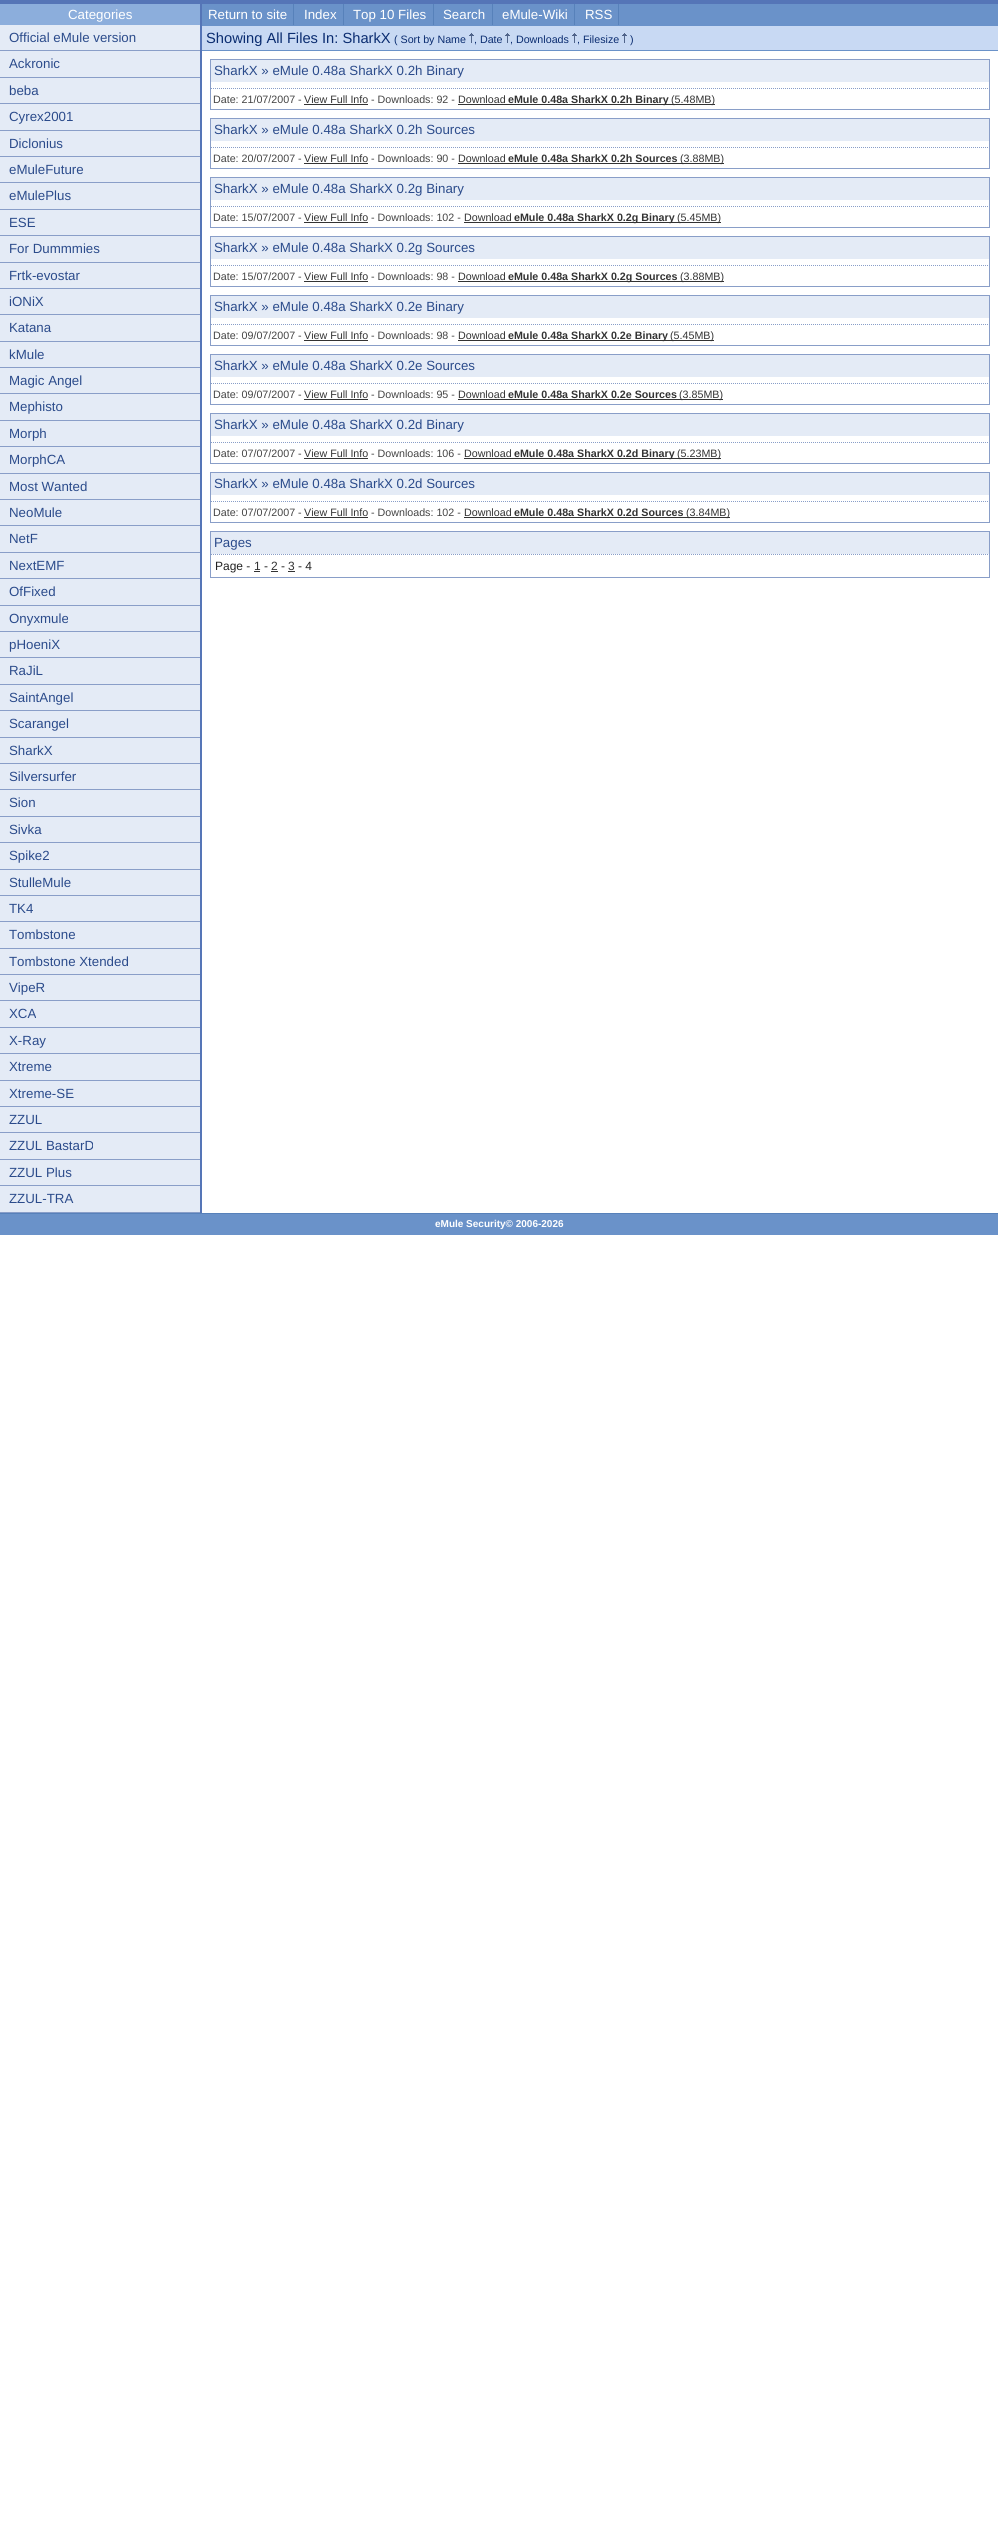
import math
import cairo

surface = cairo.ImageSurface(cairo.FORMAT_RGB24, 998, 2527)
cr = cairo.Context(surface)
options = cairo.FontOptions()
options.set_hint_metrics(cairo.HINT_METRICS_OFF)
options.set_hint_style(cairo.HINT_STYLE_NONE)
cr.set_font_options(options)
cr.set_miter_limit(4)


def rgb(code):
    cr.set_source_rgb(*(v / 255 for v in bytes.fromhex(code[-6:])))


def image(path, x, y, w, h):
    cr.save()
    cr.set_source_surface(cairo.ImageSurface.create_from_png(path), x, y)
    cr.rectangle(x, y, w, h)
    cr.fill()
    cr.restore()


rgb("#ffffff")
cr.paint()
for x, y, w, h, color in [
    (200, 0, 2, 1213, "#5575b7"),
    (0, 4, 200, 21, "#8caedc"),
    (0, 25, 200, 25, "#e4ebf6"),
    (0, 50, 200, 1, "#899ec8"),
    (0, 51, 200, 26, "#e4ebf6"),
    (0, 77, 200, 1, "#899ec8"),
    (0, 78, 200, 25, "#e4ebf6"),
    (0, 103, 200, 1, "#899ec8"),
    (0, 104, 200, 26, "#e4ebf6"),
    (0, 130, 200, 1, "#899ec8"),
    (0, 131, 200, 25, "#e4ebf6"),
    (0, 156, 200, 1, "#899ec8"),
    (0, 157, 200, 25, "#e4ebf6"),
    (0, 182, 200, 1, "#899ec8"),
    (0, 183, 200, 26, "#e4ebf6"),
    (0, 209, 200, 1, "#899ec8"),
    (0, 210, 200, 25, "#e4ebf6"),
    (0, 235, 200, 1, "#899ec8"),
    (0, 236, 200, 26, "#e4ebf6"),
    (0, 262, 200, 1, "#899ec8"),
    (0, 263, 200, 25, "#e4ebf6"),
    (0, 288, 200, 1, "#899ec8"),
    (0, 289, 200, 25, "#e4ebf6"),
    (0, 314, 200, 1, "#899ec8"),
    (0, 315, 200, 26, "#e4ebf6"),
    (0, 341, 200, 1, "#899ec8"),
    (0, 342, 200, 25, "#e4ebf6"),
    (0, 367, 200, 1, "#899ec8"),
    (0, 368, 200, 25, "#e4ebf6"),
    (0, 393, 200, 1, "#899ec8"),
    (0, 394, 200, 26, "#e4ebf6"),
    (0, 420, 200, 1, "#899ec8"),
    (0, 421, 200, 25, "#e4ebf6"),
    (0, 446, 200, 1, "#899ec8"),
    (0, 447, 200, 26, "#e4ebf6"),
    (0, 473, 200, 1, "#899ec8"),
    (0, 474, 200, 25, "#e4ebf6"),
    (0, 499, 200, 1, "#899ec8"),
    (0, 500, 200, 25, "#e4ebf6"),
    (0, 525, 200, 1, "#899ec8"),
    (0, 526, 200, 26, "#e4ebf6"),
    (0, 552, 200, 1, "#899ec8"),
    (0, 553, 200, 25, "#e4ebf6"),
    (0, 578, 200, 1, "#899ec8"),
    (0, 579, 200, 26, "#e4ebf6"),
    (0, 605, 200, 1, "#899ec8"),
    (0, 606, 200, 25, "#e4ebf6"),
    (0, 631, 200, 1, "#899ec8"),
    (0, 632, 200, 25, "#e4ebf6"),
    (0, 657, 200, 1, "#899ec8"),
    (0, 658, 200, 26, "#e4ebf6"),
    (0, 684, 200, 1, "#899ec8"),
    (0, 685, 200, 25, "#e4ebf6"),
    (0, 710, 200, 1, "#899ec8"),
    (0, 711, 200, 26, "#e4ebf6"),
    (0, 737, 200, 1, "#899ec8"),
    (0, 738, 200, 25, "#e4ebf6"),
    (0, 763, 200, 1, "#899ec8"),
    (0, 764, 200, 25, "#e4ebf6"),
    (0, 789, 200, 1, "#899ec8"),
    (0, 790, 200, 26, "#e4ebf6"),
    (0, 816, 200, 1, "#899ec8"),
    (0, 817, 200, 25, "#e4ebf6"),
    (0, 842, 200, 1, "#899ec8"),
    (0, 843, 200, 26, "#e4ebf6"),
    (0, 869, 200, 1, "#899ec8"),
    (0, 870, 200, 25, "#e4ebf6"),
    (0, 895, 200, 1, "#899ec8"),
    (0, 896, 200, 25, "#e4ebf6"),
    (0, 921, 200, 1, "#899ec8"),
    (0, 922, 200, 26, "#e4ebf6"),
    (0, 948, 200, 1, "#899ec8"),
    (0, 949, 200, 25, "#e4ebf6"),
    (0, 974, 200, 1, "#899ec8"),
    (0, 975, 200, 25, "#e4ebf6"),
    (0, 1000, 200, 1, "#899ec8"),
    (0, 1001, 200, 26, "#e4ebf6"),
    (0, 1027, 200, 1, "#899ec8"),
    (0, 1028, 200, 25, "#e4ebf6"),
    (0, 1053, 200, 1, "#899ec8"),
    (0, 1054, 200, 26, "#e4ebf6"),
    (0, 1080, 200, 1, "#899ec8"),
    (0, 1081, 200, 25, "#e4ebf6"),
    (0, 1106, 200, 1, "#899ec8"),
    (0, 1107, 200, 25, "#e4ebf6"),
    (0, 1132, 200, 1, "#899ec8"),
    (0, 1133, 200, 26, "#e4ebf6"),
    (0, 1159, 200, 1, "#899ec8"),
    (0, 1160, 200, 25, "#e4ebf6"),
    (0, 1185, 200, 1, "#899ec8"),
    (0, 1186, 200, 26, "#e4ebf6"),
    (0, 1212, 200, 1, "#899ec8"),
    (0, 0, 998, 4, "#5575b7"),
    (202, 4, 796, 22, "#6a92c9"),
    (293, 4, 1, 21, "#5781ba"),
    (343, 4, 1, 21, "#5781ba"),
    (433, 4, 1, 21, "#5781ba"),
    (492, 4, 1, 21, "#5781ba"),
    (574, 4, 1, 21, "#5781ba"),
    (618, 4, 1, 21, "#5781ba"),
    (202, 26, 796, 24, "#c8d9f3"),
    (202, 50, 796, 1, "#6a92c9"),
]:
    rgb(color)
    cr.rectangle(x, y, w, h)
    cr.fill()
image("img/1.png", 469, 33, 5, 10)
image("img/1.png", 505, 33, 5, 10)
image("img/1.png", 572, 33, 5, 10)
image("img/1.png", 622, 33, 5, 10)
cr.rectangle(210.5, 59.5, 779, 50)
rgb("#899ec8")
cr.set_line_width(1)
cr.stroke()
rgb("#e4ebf6")
cr.rectangle(211, 60, 778, 22)
cr.fill()
cr.new_path()
cr.move_to(211, 88.5)
cr.line_to(989, 88.5)
rgb("#899ec8")
cr.set_dash([1, 1])
cr.stroke()
rgb("#333333")
cr.rectangle(304, 104, 64, 1)
cr.fill()
cr.rectangle(458, 104, 257, 1)
cr.fill()
cr.rectangle(210.5, 118.5, 779, 50)
rgb("#899ec8")
cr.set_dash([])
cr.stroke()
rgb("#e4ebf6")
cr.rectangle(211, 119, 778, 22)
cr.fill()
cr.new_path()
cr.move_to(211, 147.5)
cr.line_to(989, 147.5)
rgb("#899ec8")
cr.set_dash([1, 1])
cr.stroke()
rgb("#333333")
cr.rectangle(304, 163, 64, 1)
cr.fill()
cr.rectangle(458, 163, 266, 1)
cr.fill()
cr.rectangle(210.5, 177.5, 779, 50)
rgb("#899ec8")
cr.set_dash([])
cr.stroke()
rgb("#e4ebf6")
cr.rectangle(211, 178, 778, 22)
cr.fill()
cr.new_path()
cr.move_to(211, 206.5)
cr.line_to(989, 206.5)
rgb("#899ec8")
cr.set_dash([1, 1])
cr.stroke()
rgb("#333333")
cr.rectangle(304, 222, 64, 1)
cr.fill()
cr.rectangle(464, 222, 257, 1)
cr.fill()
cr.rectangle(210.5, 236.5, 779, 50)
rgb("#899ec8")
cr.set_dash([])
cr.stroke()
rgb("#e4ebf6")
cr.rectangle(211, 237, 778, 22)
cr.fill()
cr.new_path()
cr.move_to(211, 265.5)
cr.line_to(989, 265.5)
rgb("#899ec8")
cr.set_dash([1, 1])
cr.stroke()
rgb("#333333")
cr.rectangle(304, 281, 64, 1)
cr.fill()
cr.rectangle(458, 281, 266, 1)
cr.fill()
cr.rectangle(210.5, 295.5, 779, 50)
rgb("#899ec8")
cr.set_dash([])
cr.stroke()
rgb("#e4ebf6")
cr.rectangle(211, 296, 778, 22)
cr.fill()
cr.new_path()
cr.move_to(211, 324.5)
cr.line_to(989, 324.5)
rgb("#899ec8")
cr.set_dash([1, 1])
cr.stroke()
for x, y, w, h, color in [
    (304, 340, 64, 1, "#333333"),
    (458, 340, 209, 1, "#333333"),
    (667, 340, 47, 1, "#333333"),
]:
    rgb(color)
    cr.rectangle(x, y, w, h)
    cr.fill()
cr.rectangle(210.5, 354.5, 779, 50)
rgb("#899ec8")
cr.set_dash([])
cr.stroke()
rgb("#e4ebf6")
cr.rectangle(211, 355, 778, 22)
cr.fill()
cr.new_path()
cr.move_to(211, 383.5)
cr.line_to(989, 383.5)
rgb("#899ec8")
cr.set_dash([1, 1])
cr.stroke()
rgb("#333333")
cr.rectangle(304, 399, 64, 1)
cr.fill()
cr.rectangle(458, 399, 265, 1)
cr.fill()
cr.rectangle(210.5, 413.5, 779, 50)
rgb("#899ec8")
cr.set_dash([])
cr.stroke()
rgb("#e4ebf6")
cr.rectangle(211, 414, 778, 22)
cr.fill()
cr.new_path()
cr.move_to(211, 442.5)
cr.line_to(989, 442.5)
rgb("#899ec8")
cr.set_dash([1, 1])
cr.stroke()
rgb("#333333")
cr.rectangle(304, 458, 64, 1)
cr.fill()
cr.rectangle(464, 458, 257, 1)
cr.fill()
cr.rectangle(210.5, 472.5, 779, 50)
rgb("#899ec8")
cr.set_dash([])
cr.stroke()
rgb("#e4ebf6")
cr.rectangle(211, 473, 778, 22)
cr.fill()
cr.new_path()
cr.move_to(211, 501.5)
cr.line_to(989, 501.5)
rgb("#899ec8")
cr.set_dash([1, 1])
cr.stroke()
rgb("#333333")
cr.rectangle(304, 517, 64, 1)
cr.fill()
cr.rectangle(464, 517, 266, 1)
cr.fill()
cr.rectangle(210.5, 531.5, 779, 46)
rgb("#899ec8")
cr.set_dash([])
cr.stroke()
rgb("#e4ebf6")
cr.rectangle(211, 532, 778, 22)
cr.fill()
cr.new_path()
cr.move_to(211, 554.5)
cr.line_to(989, 554.5)
rgb("#899ec8")
cr.set_dash([1, 1])
cr.stroke()
for x, y, w, h, color in [
    (254, 571, 6, 1, "#333333"),
    (271, 571, 7, 1, "#333333"),
    (288, 571, 7, 1, "#333333"),
    (0, 1214, 998, 21, "#6a92c9"),
    (0, 1213, 998, 1, "#5781ba"),
]:
    rgb(color)
    cr.rectangle(x, y, w, h)
    cr.fill()
cr.select_font_face("Liberation Sans")
cr.set_font_size(13.3)
rgb("#ffffff")
cr.move_to(68, 19)
cr.show_text("Categories")
rgb("#2b4b8b")
for x, y, s in [
    (9, 42, "Official eMule version"),
    (9, 68, "Ackronic"),
    (9, 95, "beba"),
    (9, 121, "Cyrex2001"),
    (9, 148, "Diclonius"),
    (9, 174, "eMuleFuture"),
    (9, 200, "eMulePlus"),
    (9, 227, "ESE"),
    (9, 253, "For Dummmies"),
    (9, 280, "Frtk-evostar"),
    (9, 306, "iONiX"),
    (9, 332, "Katana"),
    (9, 359, "kMule"),
    (9, 385, "Magic Angel"),
    (9, 411, "Mephisto"),
    (9, 438, "Morph"),
    (9, 464, "MorphCA"),
    (9, 491, "Most Wanted"),
    (9, 517, "NeoMule"),
    (9, 543, "NetF"),
    (9, 570, "NextEMF"),
    (9, 596, "OfFixed"),
    (9, 623, "Onyxmule"),
    (9, 649, "pHoeniX"),
    (9, 675, "RaJiL"),
    (9, 702, "SaintAngel"),
    (9, 728, "Scarangel"),
    (9, 755, "SharkX"),
    (9, 781, "Silversurfer"),
    (9, 807, "Sion"),
    (9, 834, "Sivka"),
    (9, 860, "Spike2"),
    (9, 887, "StulleMule"),
    (9, 913, "TK4"),
    (9, 939, "Tombstone"),
    (9, 966, "Tombstone Xtended"),
    (9, 992, "VipeR"),
    (9, 1018, "XCA"),
    (9, 1045, "X-Ray"),
    (9, 1071, "Xtreme"),
    (9, 1098, "Xtreme-SE"),
    (9, 1124, "ZZUL"),
    (9, 1150, "ZZUL BastarD"),
    (9, 1177, "ZZUL Plus"),
    (9, 1203, "ZZUL-TRA"),
]:
    cr.move_to(x, y)
    cr.show_text(s)
rgb("#ffffff")
for x, y, s in [
    (208, 19, "Return to site"),
    (304, 19, "Index"),
    (353, 19, "Top 10 Files"),
    (443, 19, "Search"),
    (502, 19, "eMule-Wiki"),
    (585, 19, "RSS"),
]:
    cr.move_to(x, y)
    cr.show_text(s)
cr.set_font_size(14.7)
rgb("#0a2c70")
cr.move_to(206, 43)
cr.show_text("Showing All Files In: SharkX")
cr.set_font_size(10.7)
for x, y, s in [
    (394, 43, "( Sort by Name"),
    (474, 43, ", Date"),
    (510, 43, ", Downloads"),
    (577, 43, ", Filesize"),
    (630, 43, ")"),
]:
    cr.move_to(x, y)
    cr.show_text(s)
cr.set_font_size(13.3)
rgb("#2b4b8b")
cr.move_to(214, 75)
cr.show_text("SharkX » eMule 0.48a SharkX 0.2h Binary")
cr.set_font_size(10.7)
rgb("#444444")
cr.move_to(213, 103)
cr.show_text("Date: 21/07/2007 -")
rgb("#333333")
cr.move_to(304, 103)
cr.show_text("View Full Info")
rgb("#444444")
cr.move_to(371, 103)
cr.show_text("- Downloads: 92 -")
rgb("#333333")
cr.move_to(458, 103)
cr.show_text("Download")
cr.select_font_face("Liberation Sans", cairo.FONT_SLANT_NORMAL, cairo.FONT_WEIGHT_BOLD)
cr.move_to(508, 103)
cr.show_text("eMule 0.48a SharkX 0.2h Binary")
cr.select_font_face("Liberation Sans")
cr.move_to(671, 103)
cr.show_text("(5.48MB)")
cr.set_font_size(13.3)
rgb("#2b4b8b")
cr.move_to(214, 134)
cr.show_text("SharkX » eMule 0.48a SharkX 0.2h Sources")
cr.set_font_size(10.7)
rgb("#444444")
cr.move_to(213, 162)
cr.show_text("Date: 20/07/2007 -")
rgb("#333333")
cr.move_to(304, 162)
cr.show_text("View Full Info")
rgb("#444444")
cr.move_to(371, 162)
cr.show_text("- Downloads: 90 -")
rgb("#333333")
cr.move_to(458, 162)
cr.show_text("Download")
cr.select_font_face("Liberation Sans", cairo.FONT_SLANT_NORMAL, cairo.FONT_WEIGHT_BOLD)
cr.move_to(508, 162)
cr.show_text("eMule 0.48a SharkX 0.2h Sources")
cr.select_font_face("Liberation Sans")
cr.move_to(680, 162)
cr.show_text("(3.88MB)")
cr.set_font_size(13.3)
rgb("#2b4b8b")
cr.move_to(214, 193)
cr.show_text("SharkX » eMule 0.48a SharkX 0.2g Binary")
cr.set_font_size(10.7)
rgb("#444444")
cr.move_to(213, 221)
cr.show_text("Date: 15/07/2007 -")
rgb("#333333")
cr.move_to(304, 221)
cr.show_text("View Full Info")
rgb("#444444")
cr.move_to(371, 221)
cr.show_text("- Downloads: 102 -")
rgb("#333333")
cr.move_to(464, 221)
cr.show_text("Download")
cr.select_font_face("Liberation Sans", cairo.FONT_SLANT_NORMAL, cairo.FONT_WEIGHT_BOLD)
cr.move_to(514, 221)
cr.show_text("eMule 0.48a SharkX 0.2g Binary")
cr.select_font_face("Liberation Sans")
cr.move_to(677, 221)
cr.show_text("(5.45MB)")
cr.set_font_size(13.3)
rgb("#2b4b8b")
cr.move_to(214, 252)
cr.show_text("SharkX » eMule 0.48a SharkX 0.2g Sources")
cr.set_font_size(10.7)
rgb("#444444")
cr.move_to(213, 280)
cr.show_text("Date: 15/07/2007 -")
rgb("#333333")
cr.move_to(304, 280)
cr.show_text("View Full Info")
rgb("#444444")
cr.move_to(371, 280)
cr.show_text("- Downloads: 98 -")
rgb("#333333")
cr.move_to(458, 280)
cr.show_text("Download")
cr.select_font_face("Liberation Sans", cairo.FONT_SLANT_NORMAL, cairo.FONT_WEIGHT_BOLD)
cr.move_to(508, 280)
cr.show_text("eMule 0.48a SharkX 0.2g Sources")
cr.select_font_face("Liberation Sans")
cr.move_to(680, 280)
cr.show_text("(3.88MB)")
cr.set_font_size(13.3)
rgb("#2b4b8b")
cr.move_to(214, 311)
cr.show_text("SharkX » eMule 0.48a SharkX 0.2e Binary")
cr.set_font_size(10.7)
rgb("#444444")
cr.move_to(213, 339)
cr.show_text("Date: 09/07/2007 -")
rgb("#333333")
cr.move_to(304, 339)
cr.show_text("View Full Info")
rgb("#444444")
cr.move_to(371, 339)
cr.show_text("- Downloads: 98 -")
rgb("#333333")
cr.move_to(458, 339)
cr.show_text("Download")
cr.select_font_face("Liberation Sans", cairo.FONT_SLANT_NORMAL, cairo.FONT_WEIGHT_BOLD)
cr.move_to(508, 339)
cr.show_text("eMule 0.48a SharkX 0.2e Binary")
cr.select_font_face("Liberation Sans")
cr.move_to(670, 339)
cr.show_text("(5.45MB)")
cr.set_font_size(13.3)
rgb("#2b4b8b")
cr.move_to(214, 370)
cr.show_text("SharkX » eMule 0.48a SharkX 0.2e Sources")
cr.set_font_size(10.7)
rgb("#444444")
cr.move_to(213, 398)
cr.show_text("Date: 09/07/2007 -")
rgb("#333333")
cr.move_to(304, 398)
cr.show_text("View Full Info")
rgb("#444444")
cr.move_to(371, 398)
cr.show_text("- Downloads: 95 -")
rgb("#333333")
cr.move_to(458, 398)
cr.show_text("Download")
cr.select_font_face("Liberation Sans", cairo.FONT_SLANT_NORMAL, cairo.FONT_WEIGHT_BOLD)
cr.move_to(508, 398)
cr.show_text("eMule 0.48a SharkX 0.2e Sources")
cr.select_font_face("Liberation Sans")
cr.move_to(679, 398)
cr.show_text("(3.85MB)")
cr.set_font_size(13.3)
rgb("#2b4b8b")
cr.move_to(214, 429)
cr.show_text("SharkX » eMule 0.48a SharkX 0.2d Binary")
cr.set_font_size(10.7)
rgb("#444444")
cr.move_to(213, 457)
cr.show_text("Date: 07/07/2007 -")
rgb("#333333")
cr.move_to(304, 457)
cr.show_text("View Full Info")
rgb("#444444")
cr.move_to(371, 457)
cr.show_text("- Downloads: 106 -")
rgb("#333333")
cr.move_to(464, 457)
cr.show_text("Download")
cr.select_font_face("Liberation Sans", cairo.FONT_SLANT_NORMAL, cairo.FONT_WEIGHT_BOLD)
cr.move_to(514, 457)
cr.show_text("eMule 0.48a SharkX 0.2d Binary")
cr.select_font_face("Liberation Sans")
cr.move_to(677, 457)
cr.show_text("(5.23MB)")
cr.set_font_size(13.3)
rgb("#2b4b8b")
cr.move_to(214, 488)
cr.show_text("SharkX » eMule 0.48a SharkX 0.2d Sources")
cr.set_font_size(10.7)
rgb("#444444")
cr.move_to(213, 516)
cr.show_text("Date: 07/07/2007 -")
rgb("#333333")
cr.move_to(304, 516)
cr.show_text("View Full Info")
rgb("#444444")
cr.move_to(371, 516)
cr.show_text("- Downloads: 102 -")
rgb("#333333")
cr.move_to(464, 516)
cr.show_text("Download")
cr.select_font_face("Liberation Sans", cairo.FONT_SLANT_NORMAL, cairo.FONT_WEIGHT_BOLD)
cr.move_to(514, 516)
cr.show_text("eMule 0.48a SharkX 0.2d Sources")
cr.select_font_face("Liberation Sans")
cr.move_to(686, 516)
cr.show_text("(3.84MB)")
cr.set_font_size(13.3)
rgb("#2b4b8b")
cr.move_to(214, 547)
cr.show_text("Pages")
cr.set_font_size(12)
rgb("#222222")
cr.move_to(215, 570)
cr.show_text("Page -")
rgb("#333333")
cr.move_to(254, 570)
cr.show_text("1")
rgb("#222222")
cr.move_to(264, 570)
cr.show_text("-")
rgb("#333333")
cr.move_to(271, 570)
cr.show_text("2")
rgb("#222222")
cr.move_to(281, 570)
cr.show_text("-")
rgb("#333333")
cr.move_to(288, 570)
cr.show_text("3")
rgb("#222222")
cr.move_to(298, 570)
cr.show_text("- 4")
cr.select_font_face("Liberation Sans", cairo.FONT_SLANT_NORMAL, cairo.FONT_WEIGHT_BOLD)
cr.set_font_size(10)
rgb("#ffffff")
cr.move_to(435, 1227)
cr.show_text("eMule Security© 2006-2026")
surface.write_to_png("page.png")
